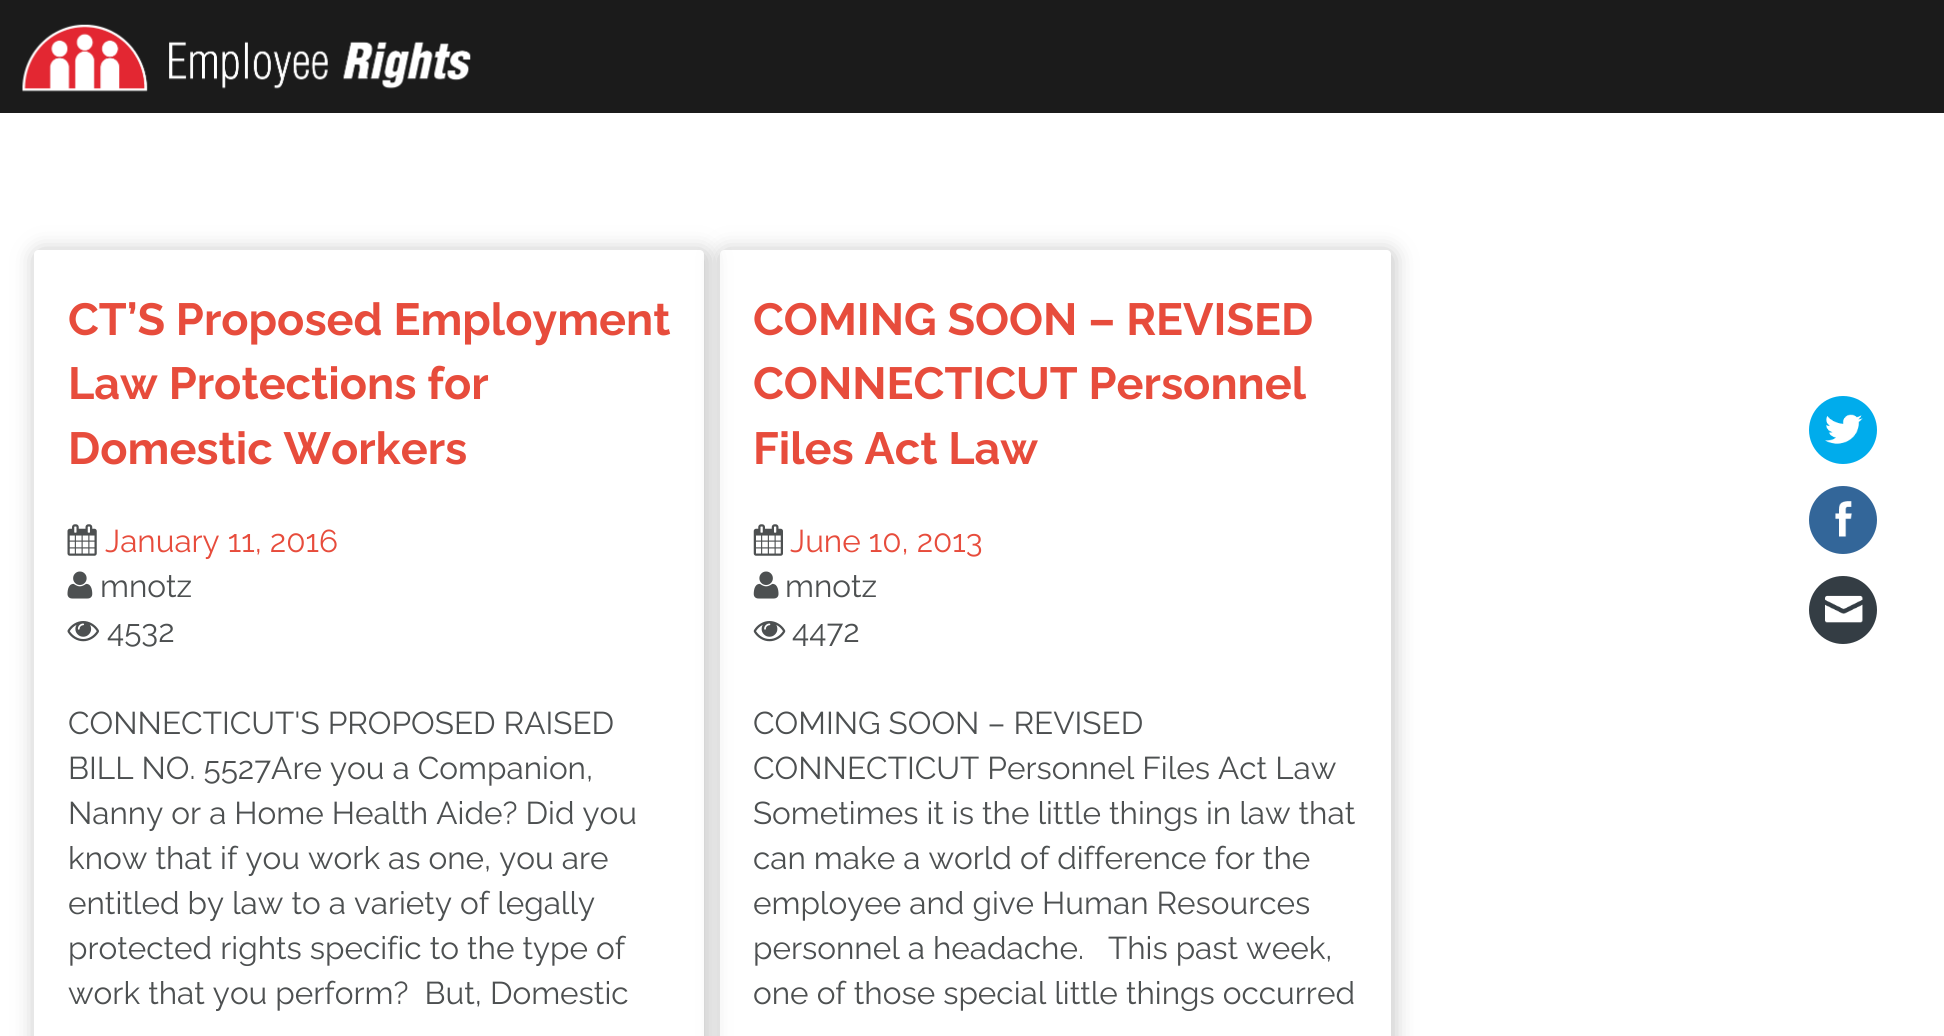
import math
import cairo

surface = cairo.ImageSurface(cairo.FORMAT_RGB24, 1944, 1036)
cr = cairo.Context(surface)
options = cairo.FontOptions()
options.set_hint_metrics(cairo.HINT_METRICS_OFF)
options.set_hint_style(cairo.HINT_STYLE_NONE)
cr.set_font_options(options)
cr.set_miter_limit(4)


def rgb(code):
    cr.set_source_rgb(*(v / 255 for v in bytes.fromhex(code[-6:])))


def rrect(x, y, w, h, r):
    cr.new_sub_path()
    for i, (u, v) in enumerate([(x + w - r, y + h - r), (x + r, y + h - r), (x + r, y + r), (x + w - r, y + r)]):
        cr.arc(u, v, r, i * math.pi / 2, (i + 1) * math.pi / 2)
    cr.close_path()


def soft_shadow(x, y, w, h, r, blur, alpha):
    cr.push_group_with_content(cairo.CONTENT_ALPHA)
    cr.set_operator(cairo.OPERATOR_SOURCE)
    for i in range(15, -16, -2):
        e = blur * i / 6
        if min(w, h) + 2 * e > 0:
            cr.set_source_rgba(0, 0, 0, alpha * math.erfc((i - 1) / 8.5) / 2)
            rrect(x - e, y - e, w + 2 * e, h + 2 * e, max(0, min(r + e + blur * .6, min(w, h) / 2 + e)))
            cr.fill()
    cr.mask(cr.pop_group())


def image(path, x, y, w, h):
    cr.save()
    cr.set_source_surface(cairo.ImageSurface.create_from_png(path), x, y)
    cr.rectangle(x, y, w, h)
    cr.fill()
    cr.restore()


rgb("#ffffff")
cr.paint()
rgb("#1b1b1b")
cr.rectangle(0, 0, 1944, 113)
cr.fill()
image("img/1.png", 22, 24, 449, 68)
cr.save()
cr.set_fill_rule(cairo.FILL_RULE_EVEN_ODD)
cr.new_path()
cr.move_to(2, 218)
cr.line_to(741, 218)
cr.line_to(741, 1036)
cr.line_to(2, 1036)
cr.close_path()
cr.move_to(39, 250)
cr.line_to(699, 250)
cr.curve_to(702, 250, 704, 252, 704, 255)
cr.line_to(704, 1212)
cr.curve_to(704, 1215, 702, 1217, 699, 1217)
cr.line_to(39, 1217)
cr.curve_to(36, 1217, 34, 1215, 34, 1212)
cr.line_to(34, 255)
cr.curve_to(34, 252, 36, 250, 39, 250)
cr.close_path()
cr.clip()
rgb("#bfbfbf")
soft_shadow(36, 252, 671, 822, 5, 11, 1)
cr.restore()
image("img/2.png", 67, 524, 30, 32)
image("img/3.png", 67, 571, 26, 28)
image("img/4.png", 67, 621, 32, 21)
cr.save()
cr.set_fill_rule(cairo.FILL_RULE_EVEN_ODD)
cr.new_path()
cr.move_to(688, 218)
cr.line_to(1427, 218)
cr.line_to(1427, 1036)
cr.line_to(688, 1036)
cr.close_path()
cr.move_to(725, 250)
cr.line_to(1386, 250)
cr.curve_to(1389, 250, 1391, 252, 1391, 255)
cr.line_to(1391, 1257)
cr.curve_to(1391, 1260, 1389, 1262, 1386, 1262)
cr.line_to(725, 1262)
cr.curve_to(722, 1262, 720, 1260, 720, 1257)
cr.line_to(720, 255)
cr.curve_to(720, 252, 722, 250, 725, 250)
cr.close_path()
cr.clip()
rgb("#bfbfbf")
soft_shadow(722, 252, 671, 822, 5, 11, 1)
cr.restore()
image("img/5.png", 753, 524, 30, 32)
image("img/6.png", 753, 571, 26, 28)
image("img/7.png", 753, 621, 33, 21)
rgb("#00acec")
cr.arc(1843, 430, 34, 0, 2 * math.pi)
cr.fill()
image("img/8.png", 1825, 414, 38, 30)
rgb("#336699")
cr.arc(1843, 520, 34, 0, 2 * math.pi)
cr.fill()
image("img/9.png", 1835, 501, 17, 36)
rgb("#343d44")
cr.arc(1843, 610, 34, 0, 2 * math.pi)
cr.fill()
image("img/10.png", 1825, 595, 38, 28)
cr.select_font_face("Raleway", cairo.FONT_SLANT_NORMAL, cairo.FONT_WEIGHT_BOLD)
cr.set_font_size(45)
rgb("#e74c3c")
for x, y, s in [
    (68, 335, "CT’S Proposed Employment"),
    (68, 399, "Law Protections for"),
    (68, 464, "Domestic Workers"),
]:
    cr.move_to(x, y)
    cr.show_text(s)
cr.select_font_face("Raleway")
cr.set_font_size(31.5)
cr.move_to(105, 552)
cr.show_text("January 11, 2016")
rgb("#4d5051")
for x, y, s in [
    (100, 597, "mnotz"),
    (107, 642, "4532"),
    (68, 734, "CONNECTICUT'S PROPOSED RAISED"),
    (68, 779, "BILL NO. 5527Are you a Companion,"),
    (68, 824, "Nanny or a Home Health Aide? Did you"),
    (68, 869, "know that if you work as one, you are"),
    (68, 914, "entitled by law to a variety of legally"),
    (68, 959, "protected rights specific to the type of"),
    (68, 1004, "work that you perform?  But, Domestic"),
]:
    cr.move_to(x, y)
    cr.show_text(s)
cr.select_font_face("Raleway", cairo.FONT_SLANT_NORMAL, cairo.FONT_WEIGHT_BOLD)
cr.set_font_size(45)
rgb("#e74c3c")
for x, y, s in [
    (753, 335, "COMING SOON – REVISED"),
    (753, 399, "CONNECTICUT Personnel"),
    (753, 464, "Files Act Law"),
]:
    cr.move_to(x, y)
    cr.show_text(s)
cr.select_font_face("Raleway")
cr.set_font_size(31.5)
cr.move_to(790, 552)
cr.show_text("June 10, 2013")
rgb("#4d5051")
for x, y, s in [
    (785, 597, "mnotz"),
    (792, 642, "4472"),
    (753, 734, "COMING SOON – REVISED"),
    (753, 779, "CONNECTICUT Personnel Files Act Law"),
    (753, 824, "Sometimes it is the little things in law that"),
    (753, 869, "can make a world of difference for the"),
    (753, 914, "employee and give Human Resources"),
    (753, 959, "personnel a headache.   This past week,"),
    (753, 1004, "one of those special little things occurred"),
]:
    cr.move_to(x, y)
    cr.show_text(s)
surface.write_to_png("page.png")
